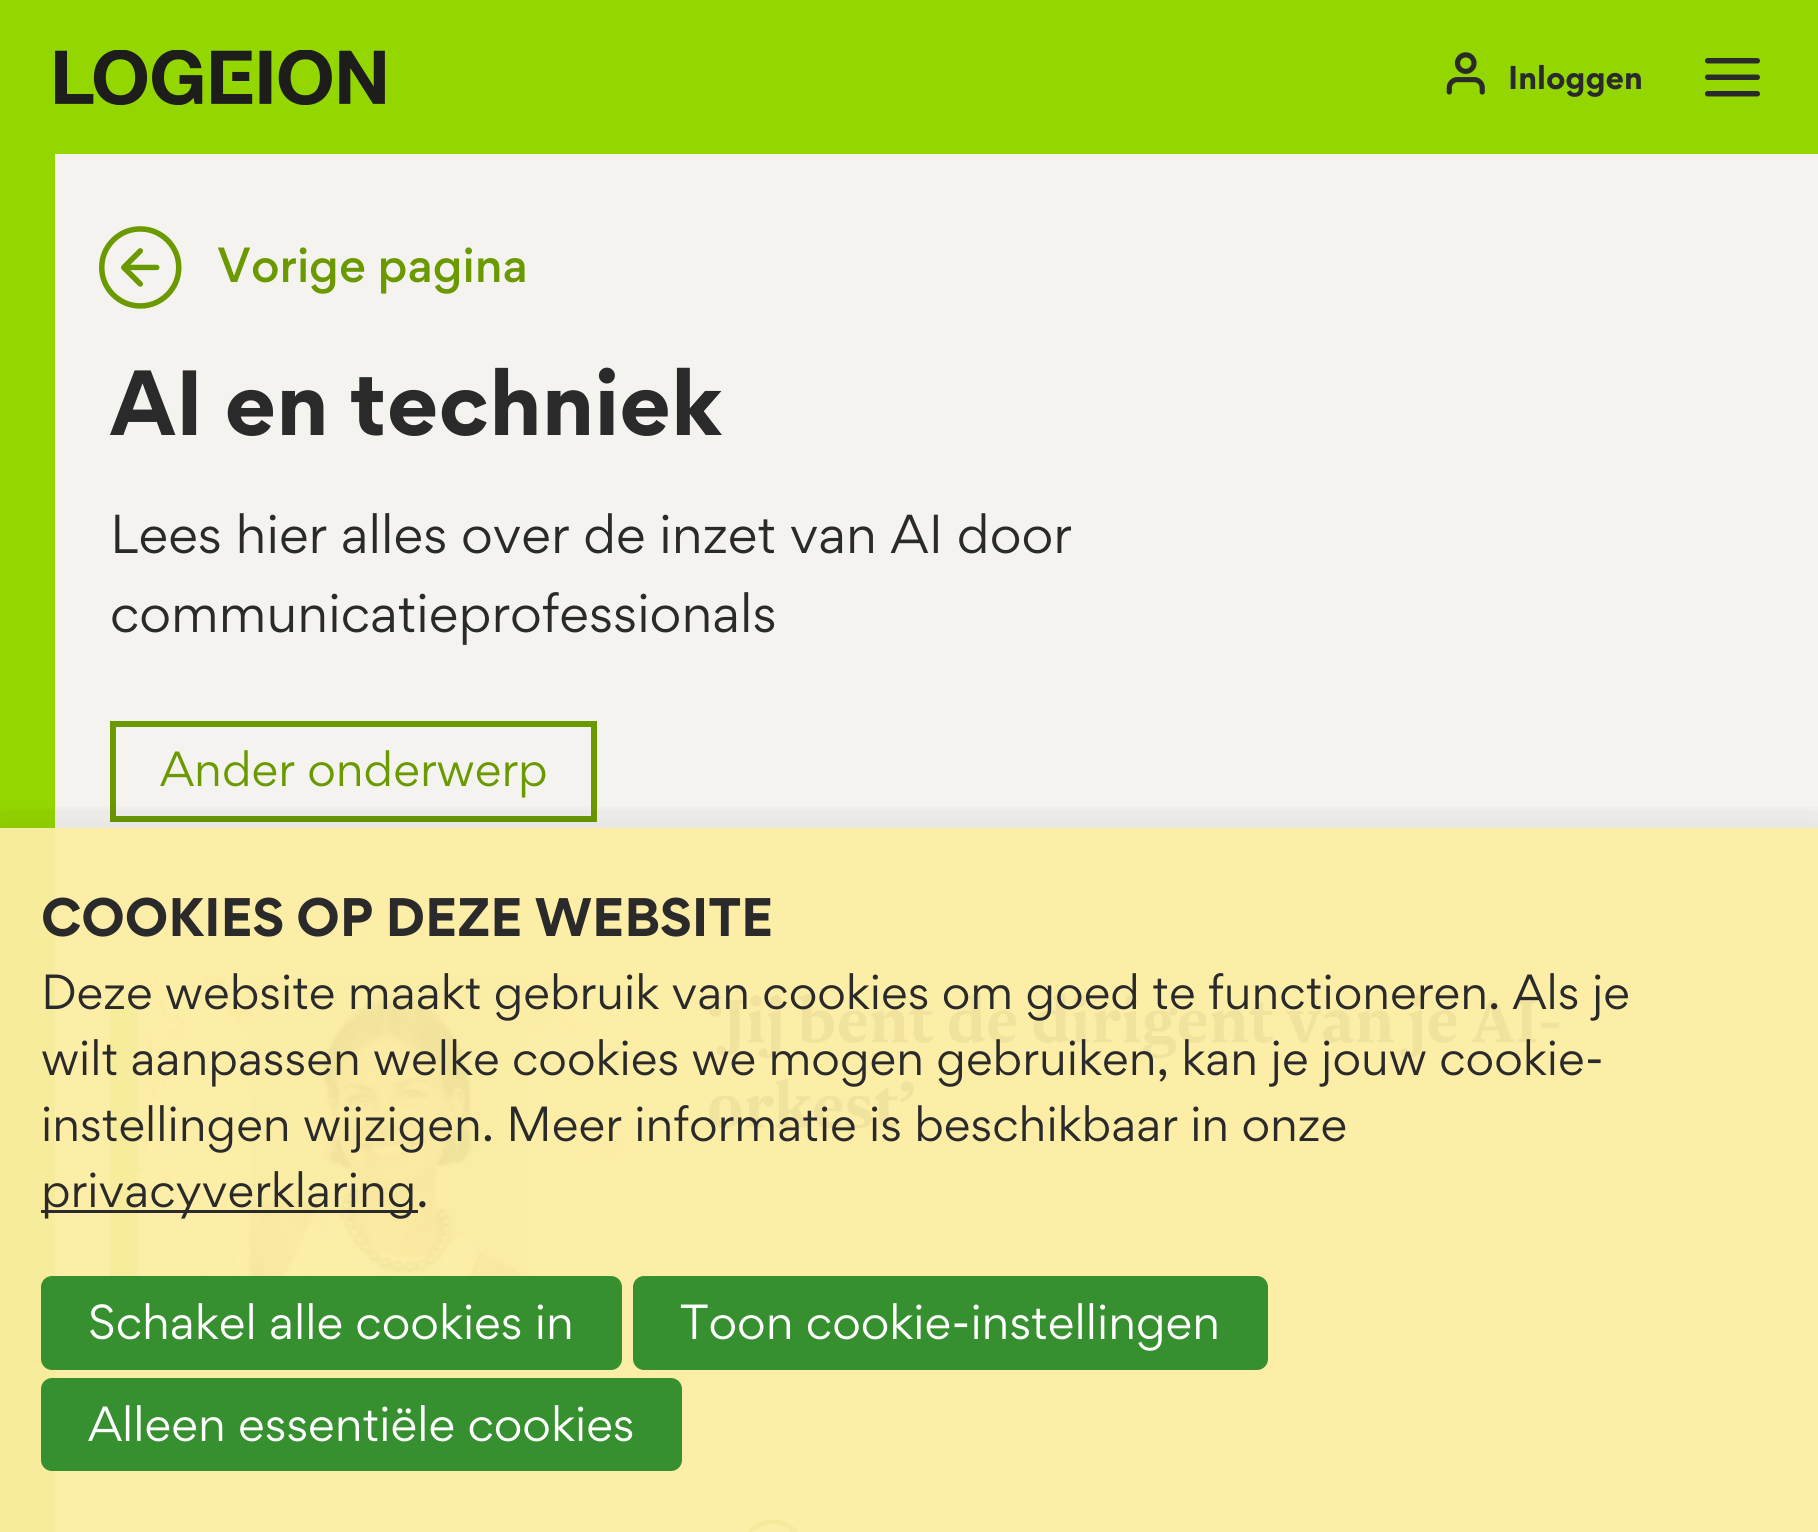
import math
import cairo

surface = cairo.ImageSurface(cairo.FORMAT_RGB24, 1818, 1532)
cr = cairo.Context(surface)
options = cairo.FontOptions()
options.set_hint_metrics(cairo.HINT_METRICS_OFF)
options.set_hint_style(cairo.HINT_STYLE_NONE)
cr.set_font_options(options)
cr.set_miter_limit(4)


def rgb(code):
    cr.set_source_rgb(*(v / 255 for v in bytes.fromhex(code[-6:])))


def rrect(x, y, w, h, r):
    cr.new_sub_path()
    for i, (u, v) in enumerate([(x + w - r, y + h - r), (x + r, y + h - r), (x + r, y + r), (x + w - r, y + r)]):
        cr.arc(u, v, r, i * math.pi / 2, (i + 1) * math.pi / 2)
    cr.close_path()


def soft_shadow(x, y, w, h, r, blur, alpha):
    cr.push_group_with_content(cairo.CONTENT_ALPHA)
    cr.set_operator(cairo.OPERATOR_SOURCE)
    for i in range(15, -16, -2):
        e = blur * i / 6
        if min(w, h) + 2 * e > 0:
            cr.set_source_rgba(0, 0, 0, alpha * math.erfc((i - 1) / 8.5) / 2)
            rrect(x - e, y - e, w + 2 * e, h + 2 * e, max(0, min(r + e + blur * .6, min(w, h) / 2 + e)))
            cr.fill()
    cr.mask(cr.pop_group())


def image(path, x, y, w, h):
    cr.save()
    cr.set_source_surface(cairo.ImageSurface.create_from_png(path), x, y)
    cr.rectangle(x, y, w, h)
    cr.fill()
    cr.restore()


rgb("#94d600")
cr.paint()
for x, y, w, h, color in [
    (0, 828, 55, 704, "#f7ec9b"),
    (55, 154, 1763, 674, "#f5f3f0"),
    (55, 828, 1763, 704, "#fceda7"),
]:
    rgb(color)
    cr.rectangle(x, y, w, h)
    cr.fill()
image("img/1.png", 55, 50, 330, 55)
image("img/2.png", 1446, 52, 39, 43)
image("img/3.png", 1705, 58, 55, 39)
image("img/4.png", 99, 226, 83, 83)
cr.rectangle(113, 724, 481, 95)
rgb("#6a9900")
cr.set_line_width(6)
cr.stroke()
rgb("#f7ec9b")
cr.new_path()
cr.move_to(110, 1004)
cr.line_to(110, 1326)
cr.line_to(613, 1326)
cr.line_to(613, 1298)
cr.line_to(138, 1298)
cr.line_to(138, 1004)
cr.close_path()
cr.fill()
image("img/5.png", 137, 976, 504, 322)
image("img/6.png", 708, 993, 852, 66)
image("img/7.png", 709, 1078, 205, 51)
image("img/8.png", 747, 1519, 52, 13)
cr.save()
cr.rectangle(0, 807, 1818, 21)
cr.clip()
rgb("#000000")
soft_shadow(0, 842, 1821, 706, 0, 27.5, 0.2)
cr.restore()
rgb("#2a2a2a")
cr.rectangle(41, 1210, 377, 3)
cr.fill()
rgb("#37902f")
rrect(42.5, 1277.5, 578, 91, 9.5)
cr.fill_preserve()
cr.set_line_width(3)
cr.stroke()
rrect(634.5, 1277.5, 632, 91, 9.5)
cr.fill_preserve()
cr.stroke()
rrect(42.5, 1379.5, 638, 90, 9.5)
cr.fill_preserve()
cr.stroke()
cr.select_font_face("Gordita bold", cairo.FONT_SLANT_NORMAL, cairo.FONT_WEIGHT_BOLD)
cr.set_font_size(29.5)
rgb("#2a2a2a")
cr.move_to(1508, 89)
cr.show_text("Inloggen")
cr.select_font_face("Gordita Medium")
cr.set_font_size(44)
rgb("#6a9900")
cr.move_to(217, 282)
cr.show_text("Vorige pagina")
cr.select_font_face("Gordita bold", cairo.FONT_SLANT_NORMAL, cairo.FONT_WEIGHT_BOLD)
cr.set_font_size(82.5)
rgb("#2a2a2a")
cr.move_to(110, 435)
cr.show_text("AI en techniek")
cr.select_font_face("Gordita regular")
cr.set_font_size(48.9)
cr.move_to(110, 553)
cr.show_text("Lees hier alles over de inzet van AI door")
cr.move_to(110, 632)
cr.show_text("communicatieprofessionals")
cr.set_font_size(44)
rgb("#6a9900")
cr.move_to(160, 786)
cr.show_text("Ander onderwerp")
cr.select_font_face("Gordita bold", cairo.FONT_SLANT_NORMAL, cairo.FONT_WEIGHT_BOLD)
cr.set_font_size(48.4)
rgb("#2a2a2a")
cr.move_to(41, 936)
cr.show_text("COOKIES OP DEZE WEBSITE")
cr.select_font_face("Gordita regular")
cr.set_font_size(44)
for x, y, s in [
    (41, 1009, "Deze website maakt gebruik van cookies om goed te functioneren. Als je"),
    (41, 1075, "wilt aanpassen welke cookies we mogen gebruiken, kan je jouw cookie-"),
    (41, 1141, "instellingen wijzigen. Meer informatie is beschikbaar in onze"),
    (41, 1207, "privacyverklaring."),
]:
    cr.move_to(x, y)
    cr.show_text(s)
rgb("#ffffff")
for x, y, s in [
    (88, 1339, "Schakel alle cookies in"),
    (680, 1339, "Toon cookie-instellingen"),
    (88, 1441, "Alleen essentiële cookies"),
]:
    cr.move_to(x, y)
    cr.show_text(s)
surface.write_to_png("page.png")
